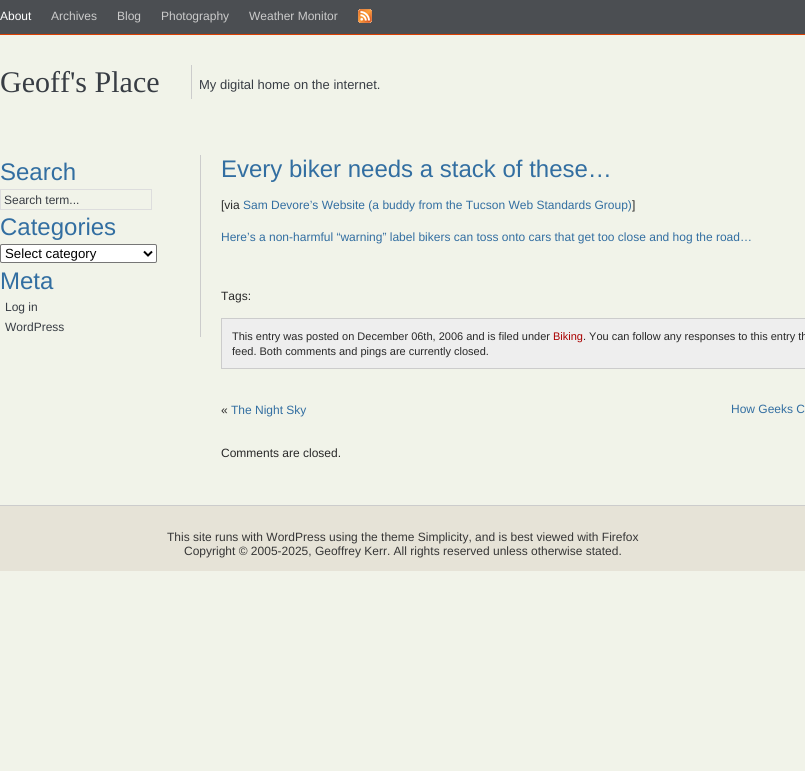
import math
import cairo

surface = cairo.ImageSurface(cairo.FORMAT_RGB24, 805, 771)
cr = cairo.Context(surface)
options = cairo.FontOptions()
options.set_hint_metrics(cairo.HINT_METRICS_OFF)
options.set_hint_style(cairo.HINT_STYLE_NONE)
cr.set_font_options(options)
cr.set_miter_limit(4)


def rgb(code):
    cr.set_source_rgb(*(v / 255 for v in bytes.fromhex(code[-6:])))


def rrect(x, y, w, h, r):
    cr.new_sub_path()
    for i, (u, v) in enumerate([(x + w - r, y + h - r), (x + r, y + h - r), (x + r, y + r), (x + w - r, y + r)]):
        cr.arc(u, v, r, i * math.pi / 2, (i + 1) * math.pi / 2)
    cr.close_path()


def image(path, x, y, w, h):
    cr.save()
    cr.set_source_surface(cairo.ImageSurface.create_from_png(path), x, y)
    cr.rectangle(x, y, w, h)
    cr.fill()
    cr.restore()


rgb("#f1f3e9")
cr.paint()
rgb("#4b4e52")
cr.rectangle(0, 0, 805, 34)
cr.fill()
rgb("#dd4003")
cr.rectangle(0, 34, 805, 1)
cr.fill()
image("img/1.png", 358, 9, 14, 14)
rgb("#cccccc")
cr.rectangle(191, 65, 1, 34)
cr.fill()
cr.rectangle(200, 155, 1, 182)
cr.fill()
cr.rectangle(0.5, 189.5, 151, 20)
rgb("#dddddd")
cr.set_line_width(1)
cr.stroke()
rgb("#ffffff")
rrect(0.5, 244.5, 156, 18, 1.5)
cr.fill_preserve()
rgb("#767676")
cr.stroke()
cr.new_path()
cr.move_to(144, 251.5)
cr.line_to(148, 255.5)
cr.line_to(152, 251.5)
rgb("#000000")
cr.set_line_width(2)
cr.stroke()
rgb("#eeeeee")
cr.rectangle(221.5, 318.5, 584, 50)
cr.fill_preserve()
rgb("#cccccc")
cr.set_line_width(1)
cr.stroke()
rgb("#e6e3d7")
cr.rectangle(0, 506, 805, 65)
cr.fill()
rgb("#cccccc")
cr.rectangle(0, 505, 805, 1)
cr.fill()
cr.select_font_face("Liberation Sans")
cr.set_font_size(12)
rgb("#ffffff")
cr.move_to(0, 20)
cr.show_text("About")
rgb("#cbcbcb")
for x, y, s in [
    (51, 20, "Archives"),
    (117, 20, "Blog"),
    (161, 20, "Photography"),
    (249, 20, "Weather Monitor"),
]:
    cr.move_to(x, y)
    cr.show_text(s)
cr.select_font_face("Liberation Serif")
cr.set_font_size(30)
rgb("#383d44")
cr.move_to(0, 92)
cr.show_text("Geoff's Place")
cr.select_font_face("Liberation Sans")
cr.set_font_size(13)
cr.move_to(199, 89)
cr.show_text("My digital home on the internet.")
cr.set_font_size(24)
rgb("#326ea1")
cr.move_to(0, 180)
cr.show_text("Search")
cr.set_font_size(12)
rgb("#383d44")
cr.move_to(4, 204)
cr.show_text("Search term...")
cr.set_font_size(24)
rgb("#326ea1")
cr.move_to(0, 235)
cr.show_text("Categories")
cr.set_font_size(13.25)
rgb("#000000")
cr.move_to(5, 258)
cr.show_text("Select category")
cr.set_font_size(24)
rgb("#326ea1")
cr.move_to(0, 289)
cr.show_text("Meta")
cr.set_font_size(12)
rgb("#383d44")
cr.move_to(5, 311)
cr.show_text("Log in")
cr.move_to(5, 331)
cr.show_text("WordPress")
cr.set_font_size(24)
rgb("#326ea1")
cr.move_to(221, 177)
cr.show_text("Every biker needs a stack of these…")
cr.set_font_size(12)
rgb("#282828")
cr.move_to(221, 209)
cr.show_text("[via")
rgb("#326ea1")
cr.move_to(243, 209)
cr.show_text("Sam Devore’s Website (a buddy from the Tucson Web Standards Group)")
rgb("#282828")
cr.move_to(632, 209)
cr.show_text("]")
rgb("#326ea1")
cr.move_to(221, 241)
cr.show_text("Here’s a non-harmful “warning” label bikers can toss onto cars that get too close and hog the road…")
rgb("#282828")
cr.move_to(221, 300)
cr.show_text("Tags:")
cr.set_font_size(11)
cr.move_to(232, 340)
cr.show_text("This entry was posted on December 06th, 2006 and is filed under")
rgb("#aa0000")
cr.move_to(553, 340)
cr.show_text("Biking")
rgb("#282828")
cr.move_to(583, 340)
cr.show_text(". You can follow any responses to this entry th")
cr.move_to(232, 355)
cr.show_text("feed. Both comments and pings are currently closed.")
cr.set_font_size(12)
cr.move_to(221, 414)
cr.show_text("«")
rgb("#326ea1")
cr.move_to(231, 414)
cr.show_text("The Night Sky")
cr.move_to(731, 413)
cr.show_text("How Geeks C")
rgb("#282828")
cr.move_to(221, 457)
cr.show_text("Comments are closed.")
rgb("#363636")
cr.move_to(167, 541)
cr.show_text("This site runs with WordPress using the theme Simplicity, and is best viewed with Firefox")
cr.move_to(184, 555)
cr.show_text("Copyright © 2005-2025, Geoffrey Kerr. All rights reserved unless otherwise stated.")
surface.write_to_png("page.png")
